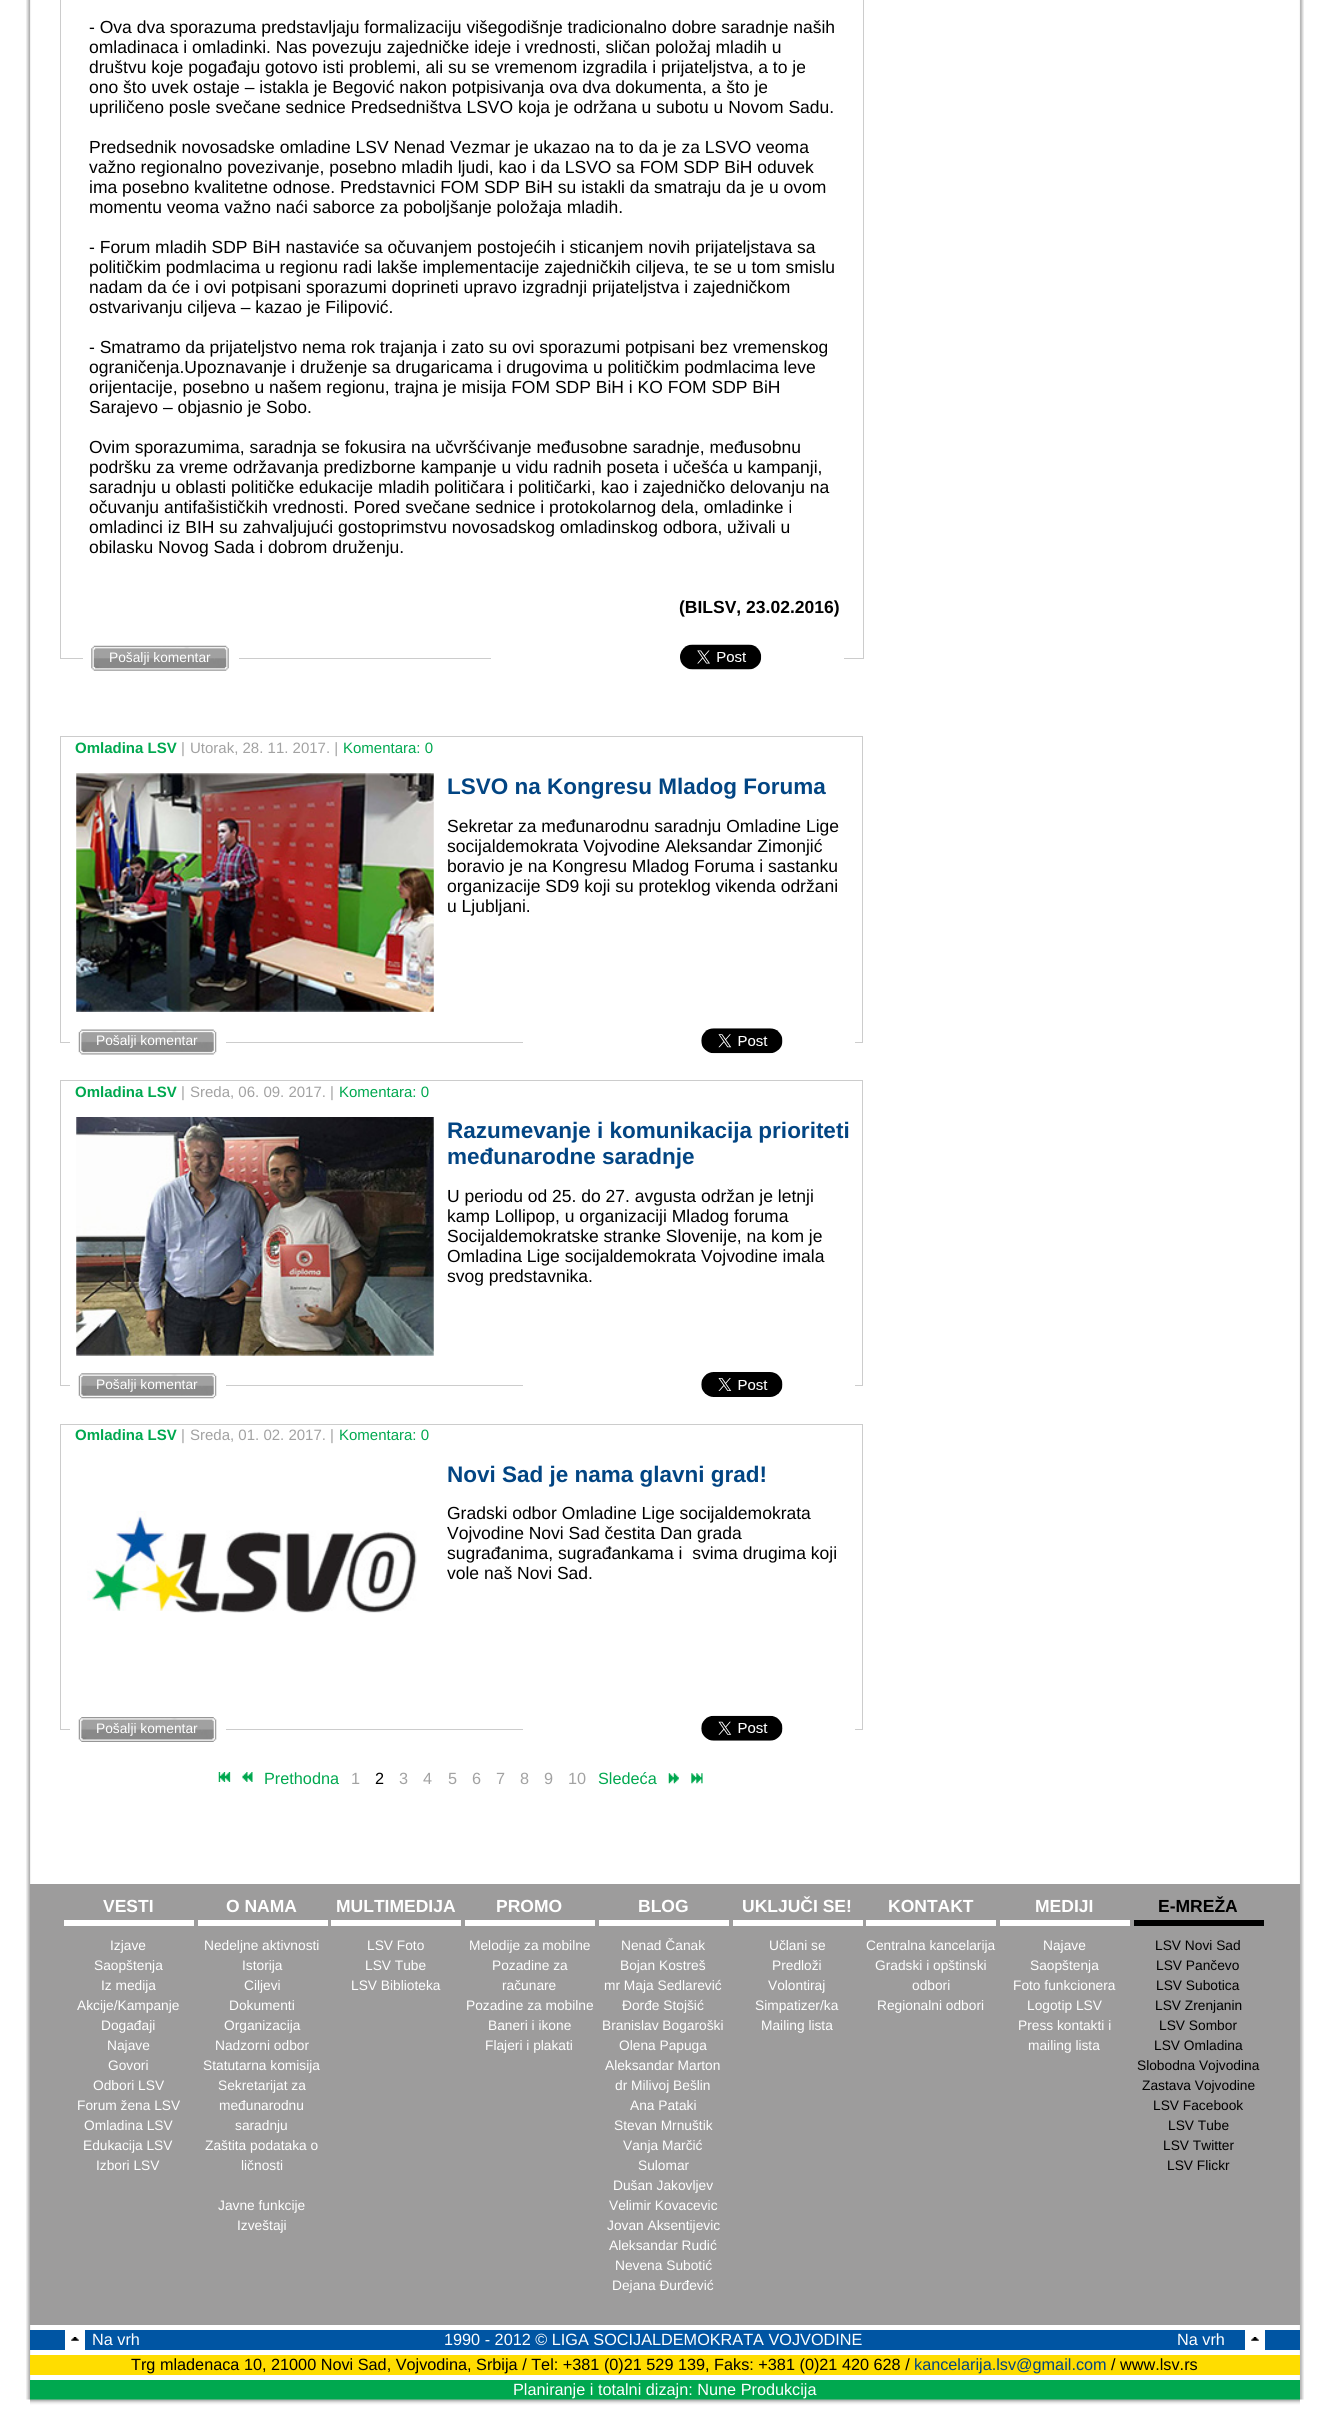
import math
import cairo

surface = cairo.ImageSurface(cairo.FORMAT_RGB24, 1328, 2419)
cr = cairo.Context(surface)
options = cairo.FontOptions()
options.set_hint_metrics(cairo.HINT_METRICS_OFF)
options.set_hint_style(cairo.HINT_STYLE_NONE)
cr.set_font_options(options)
cr.set_miter_limit(4)


def rgb(code):
    cr.set_source_rgb(*(v / 255 for v in bytes.fromhex(code[-6:])))


def image(path, x, y, w, h):
    cr.save()
    cr.set_source_surface(cairo.ImageSurface.create_from_png(path), x, y)
    cr.rectangle(x, y, w, h)
    cr.fill()
    cr.restore()


rgb("#ffffff")
cr.paint()
image("img/1.png", 26, 0, 1278, 2400)
cr.rectangle(60.5, -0.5, 803, 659)
rgb("#cccccc")
cr.set_line_width(1)
cr.stroke()
rgb("#ffffff")
cr.rectangle(83, 658, 156, 1)
cr.fill()
image("img/2.png", 91, 645, 138, 26)
cr.rectangle(491, 658, 353, 1)
cr.fill()
image("img/3.png", 680, 644, 82, 26)
cr.rectangle(60.5, 736.5, 802, 306)
rgb("#cccccc")
cr.stroke()
image("img/4.png", 76, 773, 358, 239)
rgb("#ffffff")
cr.rectangle(70, 1042, 156, 1)
cr.fill()
image("img/5.png", 78, 1029, 139, 26)
cr.rectangle(523, 1042, 332, 1)
cr.fill()
image("img/6.png", 701, 1028, 82, 26)
cr.rectangle(60.5, 1080.5, 802, 305)
rgb("#cccccc")
cr.stroke()
image("img/7.png", 76, 1117, 358, 239)
rgb("#ffffff")
cr.rectangle(70, 1385, 156, 1)
cr.fill()
image("img/8.png", 78, 1373, 139, 26)
cr.rectangle(523, 1385, 332, 1)
cr.fill()
image("img/9.png", 701, 1372, 82, 25)
cr.rectangle(60.5, 1424.5, 802, 305)
rgb("#cccccc")
cr.stroke()
image("img/10.png", 87, 1511, 330, 102)
rgb("#ffffff")
cr.rectangle(70, 1729, 156, 1)
cr.fill()
image("img/11.png", 78, 1717, 139, 25)
cr.rectangle(523, 1729, 332, 1)
cr.fill()
image("img/12.png", 701, 1715, 82, 26)
image("img/13.png", 218, 1772, 13, 10)
image("img/14.png", 242, 1772, 11, 10)
image("img/15.png", 668, 1773, 11, 11)
image("img/16.png", 691, 1773, 12, 11)
for x, y, w, h, color in [
    (30, 1884, 1270, 441, "#9d9c9c"),
    (64, 1920, 130, 6, "#ffffff"),
    (198, 1920, 130, 6, "#ffffff"),
    (331, 1920, 130, 6, "#ffffff"),
    (465, 1920, 130, 6, "#ffffff"),
    (599, 1920, 130, 6, "#ffffff"),
    (733, 1920, 130, 6, "#ffffff"),
    (866, 1920, 130, 6, "#ffffff"),
    (1000, 1920, 130, 6, "#ffffff"),
    (1134, 1920, 130, 6, "#000000"),
    (30, 2330, 1270, 20, "#0055a3"),
    (65, 2330, 20, 20, "#ffffff"),
]:
    rgb(color)
    cr.rectangle(x, y, w, h)
    cr.fill()
image("img/17.png", 71, 2337, 8, 4)
cr.rectangle(1245, 2330, 20, 20)
cr.fill()
image("img/17.png", 1251, 2337, 8, 4)
rgb("#ffdd00")
cr.rectangle(30, 2355, 1270, 20)
cr.fill()
rgb("#00a84f")
cr.rectangle(30, 2380, 1270, 20)
cr.fill()
image("img/18.png", 30, 2399, 1270, 6)
cr.select_font_face("Liberation Sans")
cr.set_font_size(17.5)
rgb("#000000")
for x, y, s in [
    (89, 33, "- Ova dva sporazuma predstavljaju formalizaciju višegodišnje tradicionalno dobre saradnje naših"),
    (89, 53, "omladinaca i omladinki. Nas povezuju zajedničke ideje i vrednosti, sličan položaj mladih u"),
    (89, 73, "društvu koje pogađaju gotovo isti problemi, ali su se vremenom izgradila i prijateljstva, a to je"),
    (89, 93, "ono što uvek ostaje – istakla je Begović nakon potpisivanja ova dva dokumenta, a što je"),
    (89, 113, "upriličeno posle svečane sednice Predsedništva LSVO koja je održana u subotu u Novom Sadu."),
    (89, 153, "Predsednik novosadske omladine LSV Nenad Vezmar je ukazao na to da je za LSVO veoma"),
    (89, 173, "važno regionalno povezivanje, posebno mladih ljudi, kao i da LSVO sa FOM SDP BiH oduvek"),
    (89, 193, "ima posebno kvalitetne odnose. Predstavnici FOM SDP BiH su istakli da smatraju da je u ovom"),
    (89, 213, "momentu veoma važno naći saborce za poboljšanje položaja mladih."),
    (89, 253, "- Forum mladih SDP BiH nastaviće sa očuvanjem postojećih i sticanjem novih prijateljstava sa"),
    (89, 273, "političkim podmlacima u regionu radi lakše implementacije zajedničkih ciljeva, te se u tom smislu"),
    (89, 293, "nadam da će i ovi potpisani sporazumi doprineti upravo izgradnji prijateljstva i zajedničkom"),
    (89, 313, "ostvarivanju ciljeva – kazao je Filipović."),
    (89, 353, "- Smatramo da prijateljstvo nema rok trajanja i zato su ovi sporazumi potpisani bez vremenskog"),
    (89, 373, "ograničenja.Upoznavanje i druženje sa drugaricama i drugovima u političkim podmlacima leve"),
    (89, 393, "orijentacije, posebno u našem regionu, trajna je misija FOM SDP BiH i KO FOM SDP BiH"),
    (89, 413, "Sarajevo – objasnio je Sobo."),
    (89, 453, "Ovim sporazumima, saradnja se fokusira na učvršćivanje međusobne saradnje, međusobnu"),
    (89, 473, "podršku za vreme održavanja predizborne kampanje u vidu radnih poseta i učešća u kampanji,"),
    (89, 493, "saradnju u oblasti političke edukacije mladih političara i političarki, kao i zajedničko delovanju na"),
    (89, 513, "očuvanju antifašističkih vrednosti. Pored svečane sednice i protokolarnog dela, omladinke i"),
    (89, 533, "omladinci iz BIH su zahvaljujući gostoprimstvu novosadskog omladinskog odbora, uživali u"),
    (89, 553, "obilasku Novog Sada i dobrom druženju."),
]:
    cr.move_to(x, y)
    cr.show_text(s)
cr.select_font_face("Liberation Sans", cairo.FONT_SLANT_NORMAL, cairo.FONT_WEIGHT_BOLD)
cr.move_to(679, 613)
cr.show_text("(BILSV, 23.02.2016)")
cr.select_font_face("Liberation Sans")
cr.set_font_size(13.75)
rgb("#ffffff")
cr.move_to(109, 662)
cr.show_text("Pošalji komentar")
cr.select_font_face("Liberation Sans", cairo.FONT_SLANT_NORMAL, cairo.FONT_WEIGHT_BOLD)
cr.set_font_size(15)
rgb("#00a84f")
cr.move_to(75, 753)
cr.show_text("Omladina LSV")
cr.select_font_face("Liberation Sans")
rgb("#a2a2a2")
cr.move_to(181, 753)
cr.show_text("|")
cr.move_to(190, 753)
cr.show_text("Utorak, 28. 11. 2017. |")
rgb("#00a84f")
cr.move_to(343, 753)
cr.show_text("Komentara: 0")
cr.select_font_face("Liberation Sans", cairo.FONT_SLANT_NORMAL, cairo.FONT_WEIGHT_BOLD)
cr.set_font_size(22.5)
rgb("#024583")
cr.move_to(447, 794)
cr.show_text("LSVO na Kongresu Mladog Foruma")
cr.select_font_face("Liberation Sans")
cr.set_font_size(17.5)
rgb("#000000")
for x, y, s in [
    (447, 832, "Sekretar za međunarodnu saradnju Omladine Lige"),
    (447, 852, "socijaldemokrata Vojvodine Aleksandar Zimonjić"),
    (447, 872, "boravio je na Kongresu Mladog Foruma i sastanku"),
    (447, 892, "organizacije SD9 koji su proteklog vikenda održani"),
    (447, 912, "u Ljubljani."),
]:
    cr.move_to(x, y)
    cr.show_text(s)
cr.set_font_size(13.75)
rgb("#ffffff")
cr.move_to(96, 1045)
cr.show_text("Pošalji komentar")
cr.select_font_face("Liberation Sans", cairo.FONT_SLANT_NORMAL, cairo.FONT_WEIGHT_BOLD)
cr.set_font_size(15)
rgb("#00a84f")
cr.move_to(75, 1097)
cr.show_text("Omladina LSV")
cr.select_font_face("Liberation Sans")
rgb("#a2a2a2")
cr.move_to(181, 1097)
cr.show_text("|")
cr.move_to(190, 1097)
cr.show_text("Sreda, 06. 09. 2017. |")
rgb("#00a84f")
cr.move_to(339, 1097)
cr.show_text("Komentara: 0")
cr.select_font_face("Liberation Sans", cairo.FONT_SLANT_NORMAL, cairo.FONT_WEIGHT_BOLD)
cr.set_font_size(22.5)
rgb("#024583")
cr.move_to(447, 1138)
cr.show_text("Razumevanje i komunikacija prioriteti")
cr.move_to(447, 1164)
cr.show_text("međunarodne saradnje")
cr.select_font_face("Liberation Sans")
cr.set_font_size(17.5)
rgb("#000000")
for x, y, s in [
    (447, 1202, "U periodu od 25. do 27. avgusta održan je letnji"),
    (447, 1222, "kamp Lollipop, u organizaciji Mladog foruma"),
    (447, 1242, "Socijaldemokratske stranke Slovenije, na kom je"),
    (447, 1262, "Omladina Lige socijaldemokrata Vojvodine imala"),
    (447, 1282, "svog predstavnika."),
]:
    cr.move_to(x, y)
    cr.show_text(s)
cr.set_font_size(13.75)
rgb("#ffffff")
cr.move_to(96, 1389)
cr.show_text("Pošalji komentar")
cr.select_font_face("Liberation Sans", cairo.FONT_SLANT_NORMAL, cairo.FONT_WEIGHT_BOLD)
cr.set_font_size(15)
rgb("#00a84f")
cr.move_to(75, 1440)
cr.show_text("Omladina LSV")
cr.select_font_face("Liberation Sans")
rgb("#a2a2a2")
cr.move_to(181, 1440)
cr.show_text("|")
cr.move_to(190, 1440)
cr.show_text("Sreda, 01. 02. 2017. |")
rgb("#00a84f")
cr.move_to(339, 1440)
cr.show_text("Komentara: 0")
cr.select_font_face("Liberation Sans", cairo.FONT_SLANT_NORMAL, cairo.FONT_WEIGHT_BOLD)
cr.set_font_size(22.5)
rgb("#024583")
cr.move_to(447, 1482)
cr.show_text("Novi Sad je nama glavni grad!")
cr.select_font_face("Liberation Sans")
cr.set_font_size(17.5)
rgb("#000000")
for x, y, s in [
    (447, 1519, "Gradski odbor Omladine Lige socijaldemokrata"),
    (447, 1539, "Vojvodine Novi Sad čestita Dan grada"),
    (447, 1559, "sugrađanima, sugrađankama i  svima drugima koji"),
    (447, 1579, "vole naš Novi Sad."),
]:
    cr.move_to(x, y)
    cr.show_text(s)
cr.set_font_size(13.75)
rgb("#ffffff")
cr.move_to(96, 1733)
cr.show_text("Pošalji komentar")
cr.set_font_size(16.25)
rgb("#00a84f")
cr.move_to(264, 1784)
cr.show_text("Prethodna")
rgb("#a2a2a2")
cr.move_to(351, 1784)
cr.show_text("1")
rgb("#000000")
cr.move_to(375, 1784)
cr.show_text("2")
rgb("#a2a2a2")
for x, y, s in [
    (399, 1784, "3"),
    (423, 1784, "4"),
    (448, 1784, "5"),
    (472, 1784, "6"),
    (496, 1784, "7"),
    (520, 1784, "8"),
    (544, 1784, "9"),
    (568, 1784, "10"),
]:
    cr.move_to(x, y)
    cr.show_text(s)
rgb("#00a84f")
cr.move_to(598, 1784)
cr.show_text("Sledeća")
cr.select_font_face("Liberation Sans", cairo.FONT_SLANT_NORMAL, cairo.FONT_WEIGHT_BOLD)
cr.set_font_size(17.5)
rgb("#ffffff")
cr.move_to(103, 1912)
cr.show_text("VESTI")
cr.select_font_face("Liberation Sans")
cr.set_font_size(13.75)
for x, y, s in [
    (110, 1950, "Izjave"),
    (94, 1970, "Saopštenja"),
    (101, 1990, "Iz medija"),
    (77, 2010, "Akcije/Kampanje"),
    (101, 2030, "Događaji"),
    (107, 2050, "Najave"),
    (108, 2070, "Govori"),
    (93, 2090, "Odbori LSV"),
    (77, 2110, "Forum žena LSV"),
    (84, 2130, "Omladina LSV"),
    (83, 2150, "Edukacija LSV"),
    (96, 2170, "Izbori LSV"),
]:
    cr.move_to(x, y)
    cr.show_text(s)
cr.select_font_face("Liberation Sans", cairo.FONT_SLANT_NORMAL, cairo.FONT_WEIGHT_BOLD)
cr.set_font_size(17.5)
cr.move_to(226, 1912)
cr.show_text("O NAMA")
cr.select_font_face("Liberation Sans")
cr.set_font_size(13.75)
for x, y, s in [
    (204, 1950, "Nedeljne aktivnosti"),
    (242, 1970, "Istorija"),
    (244, 1990, "Ciljevi"),
    (229, 2010, "Dokumenti"),
    (224, 2030, "Organizacija"),
    (215, 2050, "Nadzorni odbor"),
    (203, 2070, "Statutarna komisija"),
    (218, 2090, "Sekretarijat za"),
    (219, 2110, "međunarodnu"),
    (235, 2130, "saradnju"),
    (205, 2150, "Zaštita podataka o"),
    (241, 2170, "ličnosti"),
    (218, 2210, "Javne funkcije"),
    (237, 2230, "Izveštaji"),
]:
    cr.move_to(x, y)
    cr.show_text(s)
cr.select_font_face("Liberation Sans", cairo.FONT_SLANT_NORMAL, cairo.FONT_WEIGHT_BOLD)
cr.set_font_size(17.5)
cr.move_to(336, 1912)
cr.show_text("MULTIMEDIJA")
cr.select_font_face("Liberation Sans")
cr.set_font_size(13.75)
for x, y, s in [
    (367, 1950, "LSV Foto"),
    (365, 1970, "LSV Tube"),
    (351, 1990, "LSV Biblioteka"),
]:
    cr.move_to(x, y)
    cr.show_text(s)
cr.select_font_face("Liberation Sans", cairo.FONT_SLANT_NORMAL, cairo.FONT_WEIGHT_BOLD)
cr.set_font_size(17.5)
cr.move_to(496, 1912)
cr.show_text("PROMO")
cr.select_font_face("Liberation Sans")
cr.set_font_size(13.75)
for x, y, s in [
    (469, 1950, "Melodije za mobilne"),
    (492, 1970, "Pozadine za"),
    (502, 1990, "računare"),
    (466, 2010, "Pozadine za mobilne"),
    (488, 2030, "Baneri i ikone"),
    (485, 2050, "Flajeri i plakati"),
]:
    cr.move_to(x, y)
    cr.show_text(s)
cr.select_font_face("Liberation Sans", cairo.FONT_SLANT_NORMAL, cairo.FONT_WEIGHT_BOLD)
cr.set_font_size(17.5)
cr.move_to(638, 1912)
cr.show_text("BLOG")
cr.select_font_face("Liberation Sans")
cr.set_font_size(13.75)
for x, y, s in [
    (621, 1950, "Nenad Čanak"),
    (620, 1970, "Bojan Kostreš"),
    (604, 1990, "mr Maja Sedlarević"),
    (622, 2010, "Đorđe Stojšić"),
    (602, 2030, "Branislav Bogaroški"),
    (619, 2050, "Olena Papuga"),
    (605, 2070, "Aleksandar Marton"),
    (615, 2090, "dr Milivoj Bešlin"),
    (630, 2110, "Ana Pataki"),
    (614, 2130, "Stevan Mrnuštik"),
    (623, 2150, "Vanja Marčić"),
    (638, 2170, "Sulomar"),
    (613, 2190, "Dušan Jakovljev"),
    (609, 2210, "Velimir Kovacevic"),
    (607, 2230, "Jovan Aksentijevic"),
    (609, 2250, "Aleksandar Rudić"),
    (615, 2270, "Nevena Subotić"),
    (612, 2290, "Dejana Đurđević"),
]:
    cr.move_to(x, y)
    cr.show_text(s)
cr.select_font_face("Liberation Sans", cairo.FONT_SLANT_NORMAL, cairo.FONT_WEIGHT_BOLD)
cr.set_font_size(17.5)
cr.move_to(742, 1912)
cr.show_text("UKLJUČI SE!")
cr.select_font_face("Liberation Sans")
cr.set_font_size(13.75)
for x, y, s in [
    (769, 1950, "Učlani se"),
    (772, 1970, "Predloži"),
    (768, 1990, "Volontiraj"),
    (755, 2010, "Simpatizer/ka"),
    (761, 2030, "Mailing lista"),
]:
    cr.move_to(x, y)
    cr.show_text(s)
cr.select_font_face("Liberation Sans", cairo.FONT_SLANT_NORMAL, cairo.FONT_WEIGHT_BOLD)
cr.set_font_size(17.5)
cr.move_to(888, 1912)
cr.show_text("KONTAKT")
cr.select_font_face("Liberation Sans")
cr.set_font_size(13.75)
for x, y, s in [
    (866, 1950, "Centralna kancelarija"),
    (875, 1970, "Gradski i opštinski"),
    (912, 1990, "odbori"),
    (877, 2010, "Regionalni odbori"),
]:
    cr.move_to(x, y)
    cr.show_text(s)
cr.select_font_face("Liberation Sans", cairo.FONT_SLANT_NORMAL, cairo.FONT_WEIGHT_BOLD)
cr.set_font_size(17.5)
cr.move_to(1035, 1912)
cr.show_text("MEDIJI")
cr.select_font_face("Liberation Sans")
cr.set_font_size(13.75)
for x, y, s in [
    (1043, 1950, "Najave"),
    (1030, 1970, "Saopštenja"),
    (1013, 1990, "Foto funkcionera"),
    (1027, 2010, "Logotip LSV"),
    (1018, 2030, "Press kontakti i"),
    (1028, 2050, "mailing lista"),
]:
    cr.move_to(x, y)
    cr.show_text(s)
cr.select_font_face("Liberation Sans", cairo.FONT_SLANT_NORMAL, cairo.FONT_WEIGHT_BOLD)
cr.set_font_size(17.5)
rgb("#000000")
cr.move_to(1158, 1912)
cr.show_text("E-MREŽA")
cr.select_font_face("Liberation Sans")
cr.set_font_size(13.75)
for x, y, s in [
    (1155, 1950, "LSV Novi Sad"),
    (1156, 1970, "LSV Pančevo"),
    (1156, 1990, "LSV Subotica"),
    (1155, 2010, "LSV Zrenjanin"),
    (1159, 2030, "LSV Sombor"),
    (1154, 2050, "LSV Omladina"),
    (1137, 2070, "Slobodna Vojvodina"),
    (1142, 2090, "Zastava Vojvodine"),
    (1153, 2110, "LSV Facebook"),
    (1168, 2130, "LSV Tube"),
    (1163, 2150, "LSV Twitter"),
    (1167, 2170, "LSV Flickr"),
]:
    cr.move_to(x, y)
    cr.show_text(s)
cr.set_font_size(16.25)
rgb("#ffffff")
for x, y, s in [
    (92, 2345, "Na vrh"),
    (444, 2345, "1990 - 2012 © LIGA SOCIJALDEMOKRATA VOJVODINE"),
    (1177, 2345, "Na vrh"),
]:
    cr.move_to(x, y)
    cr.show_text(s)
rgb("#000000")
cr.move_to(131, 2370)
cr.show_text("Trg mladenaca 10, 21000 Novi Sad, Vojvodina, Srbija / Tel: +381 (0)21 529 139, Faks: +381 (0)21 420 628 /")
rgb("#024583")
cr.move_to(914, 2370)
cr.show_text("kancelarija.lsv@gmail.com")
rgb("#000000")
cr.move_to(1111, 2370)
cr.show_text("/ www.lsv.rs")
rgb("#ffffff")
cr.move_to(513, 2395)
cr.show_text("Planiranje i totalni dizajn: Nune Produkcija")
surface.write_to_png("page.png")
